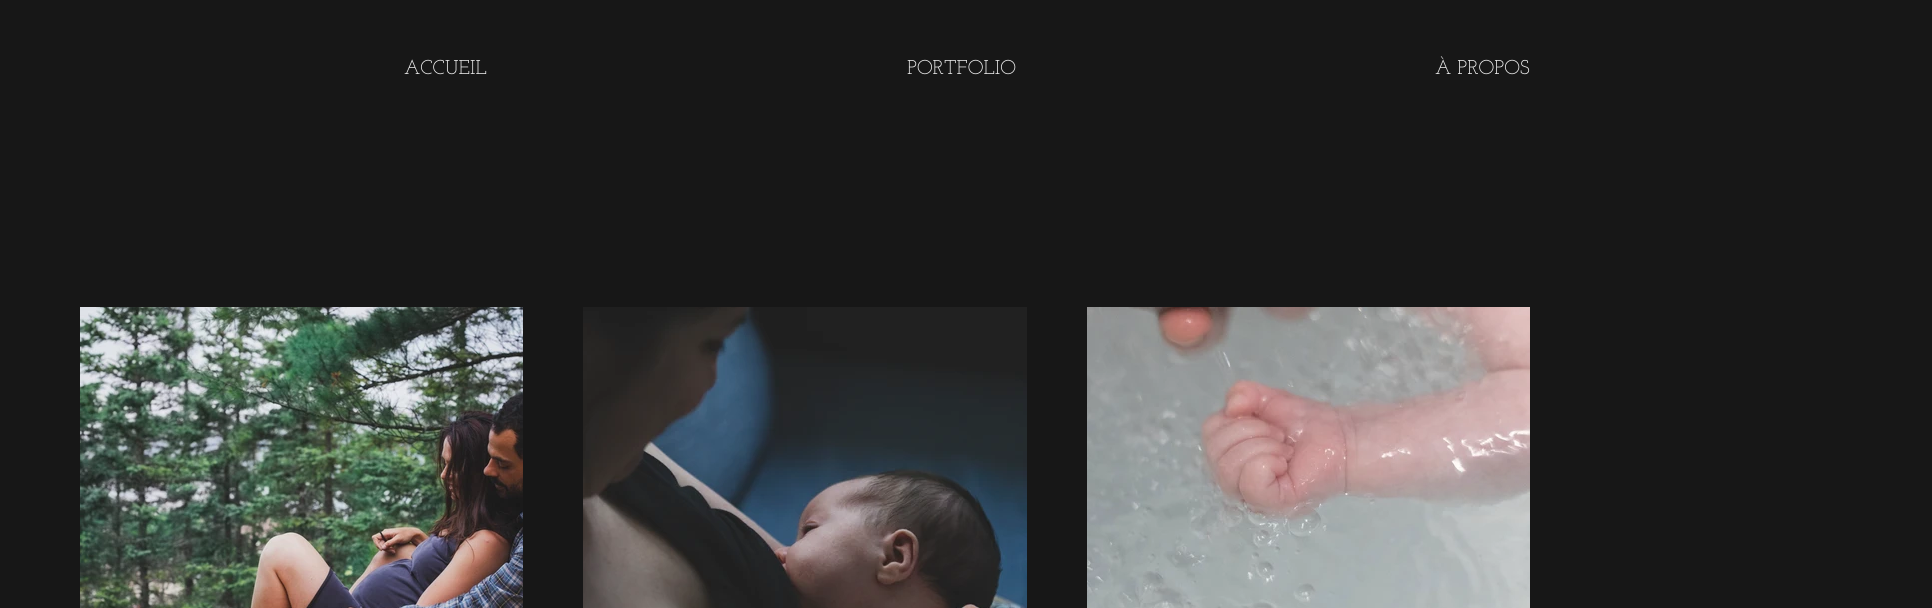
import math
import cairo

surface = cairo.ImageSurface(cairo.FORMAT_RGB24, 1932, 608)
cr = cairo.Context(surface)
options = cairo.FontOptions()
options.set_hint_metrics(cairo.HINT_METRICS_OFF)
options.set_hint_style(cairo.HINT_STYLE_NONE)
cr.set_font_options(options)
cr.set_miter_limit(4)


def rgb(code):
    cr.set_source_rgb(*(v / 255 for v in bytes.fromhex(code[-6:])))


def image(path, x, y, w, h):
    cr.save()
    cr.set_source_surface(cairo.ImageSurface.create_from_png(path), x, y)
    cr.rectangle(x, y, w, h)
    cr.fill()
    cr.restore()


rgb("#171717")
cr.paint()
image("img/1.png", 80, 307, 443, 301)
image("img/2.png", 583, 307, 444, 301)
image("img/3.png", 1087, 307, 443, 301)
cr.select_font_face("Josefin Slab")
cr.set_font_size(20)
rgb("#ebebeb")
for x, y, s in [
    (404, 74, "ACCUEIL"),
    (907, 74, "PORTFOLIO"),
    (1435, 74, "À PROPOS"),
]:
    cr.move_to(x, y)
    cr.show_text(s)
surface.write_to_png("page.png")
